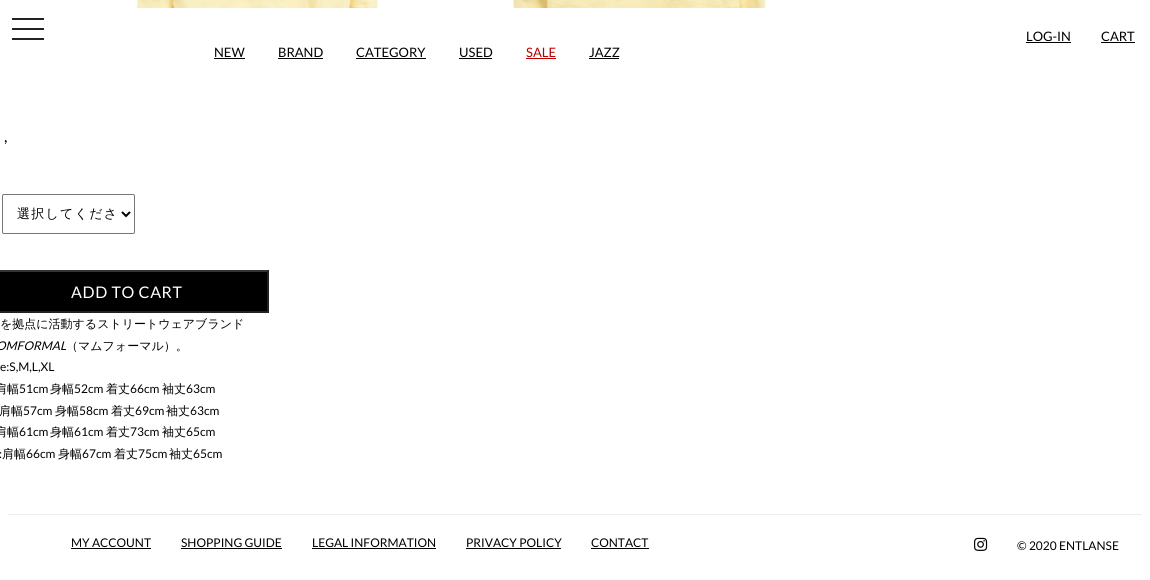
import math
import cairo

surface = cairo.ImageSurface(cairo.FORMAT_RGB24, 1150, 580)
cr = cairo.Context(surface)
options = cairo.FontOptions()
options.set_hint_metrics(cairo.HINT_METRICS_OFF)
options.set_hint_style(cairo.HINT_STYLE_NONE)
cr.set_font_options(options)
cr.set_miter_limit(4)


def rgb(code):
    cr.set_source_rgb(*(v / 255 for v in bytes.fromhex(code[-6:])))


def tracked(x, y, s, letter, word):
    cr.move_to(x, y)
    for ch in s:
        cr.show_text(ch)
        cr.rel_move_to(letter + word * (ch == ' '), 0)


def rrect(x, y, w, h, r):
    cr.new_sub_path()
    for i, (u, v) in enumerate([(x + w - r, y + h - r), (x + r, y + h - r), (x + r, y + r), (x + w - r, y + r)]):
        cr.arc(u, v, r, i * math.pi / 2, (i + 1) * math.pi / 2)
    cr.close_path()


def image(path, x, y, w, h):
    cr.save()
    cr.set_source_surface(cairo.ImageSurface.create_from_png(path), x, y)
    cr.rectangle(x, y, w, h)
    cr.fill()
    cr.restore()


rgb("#ffffff")
cr.paint()
for x, y, w, h, color in [
    (12, 28, 32, 2, "#222222"),
    (12, 18, 32, 2, "#222222"),
    (12, 38, 32, 2, "#222222"),
    (1026, 42, 45, 1, "#000000"),
    (1101, 42, 34, 1, "#000000"),
    (214, 58, 31, 1, "#000000"),
    (278, 58, 45, 1, "#000000"),
    (356, 58, 70, 1, "#000000"),
    (459, 58, 33, 1, "#000000"),
    (526, 58, 30, 1, "#b80000"),
    (589, 58, 30, 1, "#000000"),
]:
    rgb(color)
    cr.rectangle(x, y, w, h)
    cr.fill()
image("img/1.png", 136, 0, 242, 8)
image("img/2.png", 513, 0, 253, 8)
rrect(2.5, 194.5, 132, 39, 1.5)
rgb("#767676")
cr.set_line_width(1)
cr.stroke()
cr.new_path()
cr.move_to(122, 212)
cr.line_to(126, 216)
cr.line_to(130, 212)
rgb("#000000")
cr.set_line_width(2)
cr.stroke()
cr.rectangle(0, 270, 269, 43)
cr.fill()
rgb("#333333")
cr.new_path()
cr.move_to(-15, 270)
cr.line_to(269, 270)
cr.line_to(267, 272)
cr.line_to(-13, 272)
cr.close_path()
cr.fill()
rgb("#222222")
cr.new_path()
cr.move_to(269, 270)
cr.line_to(269, 313)
cr.line_to(267, 311)
cr.line_to(267, 272)
cr.close_path()
cr.fill()
cr.new_path()
cr.move_to(269, 313)
cr.line_to(-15, 313)
cr.line_to(-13, 311)
cr.line_to(267, 311)
cr.close_path()
cr.fill()
for x, y, w, h, color in [
    (8, 514, 1134, 1, "#eeeeee"),
    (71, 548, 80, 1, "#000000"),
    (181, 548, 101, 1, "#000000"),
    (312, 548, 124, 1, "#000000"),
    (466, 548, 95, 1, "#000000"),
    (591, 548, 58, 1, "#000000"),
]:
    rgb(color)
    cr.rectangle(x, y, w, h)
    cr.fill()
image("img/3.png", 974, 537, 14, 14)
cr.select_font_face("Lato")
cr.set_font_size(13)
for x, y, s in [
    (1026, 41, "LOG-IN"),
    (1101, 41, "CART"),
    (214, 57, "NEW"),
    (278, 57, "BRAND"),
    (356, 57, "CATEGORY"),
    (459, 57, "USED"),
]:
    cr.move_to(x, y)
    cr.show_text(s)
rgb("#b80000")
cr.move_to(526, 57)
cr.show_text("SALE")
rgb("#000000")
cr.move_to(589, 57)
cr.show_text("JAZZ")
cr.set_font_size(16)
cr.move_to(4, 142)
cr.show_text(",")
cr.select_font_face("WenQuanYi Zen Hei Medium")
cr.set_font_size(13)
tracked(17, 218, "選択してくださ", 1.25, 0)
cr.select_font_face("Lato")
cr.set_font_size(16)
rgb("#ffffff")
tracked(71, 298, "ADD TO CART", 0.6, 0)
cr.select_font_face("WenQuanYi Zen Hei Medium")
cr.set_font_size(12)
rgb("#000000")
cr.move_to(0, 328)
cr.show_text("を拠点に活動するストリートウェアブランド")
cr.select_font_face("Lato", cairo.FONT_SLANT_ITALIC)
cr.move_to(-4, 350)
cr.show_text("OMFORMAL")
cr.select_font_face("WenQuanYi Zen Hei Medium")
cr.move_to(66, 350)
cr.show_text("（マムフォーマル）。")
cr.select_font_face("Lato")
cr.move_to(0, 371)
cr.show_text("e:S,M,L,XL")
cr.select_font_face("WenQuanYi Zen Hei Medium")
cr.move_to(-5, 393)
cr.show_text("肩幅")
cr.select_font_face("Lato")
cr.move_to(19, 393)
cr.show_text("51cm")
cr.select_font_face("WenQuanYi Zen Hei Medium")
cr.move_to(50, 393)
cr.show_text("身幅")
cr.select_font_face("Lato")
cr.move_to(74, 393)
cr.show_text("52cm")
cr.select_font_face("WenQuanYi Zen Hei Medium")
cr.move_to(106, 393)
cr.show_text("着丈")
cr.select_font_face("Lato")
cr.move_to(130, 393)
cr.show_text("66cm")
cr.select_font_face("WenQuanYi Zen Hei Medium")
cr.move_to(162, 393)
cr.show_text("袖丈")
cr.select_font_face("Lato")
cr.move_to(186, 393)
cr.show_text("63cm")
cr.select_font_face("WenQuanYi Zen Hei Medium")
cr.move_to(-1, 415)
cr.show_text("肩幅")
cr.select_font_face("Lato")
cr.move_to(23, 415)
cr.show_text("57cm")
cr.select_font_face("WenQuanYi Zen Hei Medium")
cr.move_to(55, 415)
cr.show_text("身幅")
cr.select_font_face("Lato")
cr.move_to(79, 415)
cr.show_text("58cm")
cr.select_font_face("WenQuanYi Zen Hei Medium")
cr.move_to(111, 415)
cr.show_text("着丈")
cr.select_font_face("Lato")
cr.move_to(135, 415)
cr.show_text("69cm")
cr.select_font_face("WenQuanYi Zen Hei Medium")
cr.move_to(166, 415)
cr.show_text("袖丈")
cr.select_font_face("Lato")
cr.move_to(190, 415)
cr.show_text("63cm")
cr.select_font_face("WenQuanYi Zen Hei Medium")
cr.move_to(-5, 436)
cr.show_text("肩幅")
cr.select_font_face("Lato")
cr.move_to(19, 436)
cr.show_text("61cm")
cr.select_font_face("WenQuanYi Zen Hei Medium")
cr.move_to(50, 436)
cr.show_text("身幅")
cr.select_font_face("Lato")
cr.move_to(74, 436)
cr.show_text("61cm")
cr.select_font_face("WenQuanYi Zen Hei Medium")
cr.move_to(106, 436)
cr.show_text("着丈")
cr.select_font_face("Lato")
cr.move_to(130, 436)
cr.show_text("73cm")
cr.select_font_face("WenQuanYi Zen Hei Medium")
cr.move_to(162, 436)
cr.show_text("袖丈")
cr.select_font_face("Lato")
cr.move_to(186, 436)
cr.show_text("65cm")
cr.move_to(-1, 458)
cr.show_text(":")
cr.select_font_face("WenQuanYi Zen Hei Medium")
cr.move_to(2, 458)
cr.show_text("肩幅")
cr.select_font_face("Lato")
cr.move_to(26, 458)
cr.show_text("66cm")
cr.select_font_face("WenQuanYi Zen Hei Medium")
cr.move_to(58, 458)
cr.show_text("身幅")
cr.select_font_face("Lato")
cr.move_to(82, 458)
cr.show_text("67cm")
cr.select_font_face("WenQuanYi Zen Hei Medium")
cr.move_to(114, 458)
cr.show_text("着丈")
cr.select_font_face("Lato")
cr.move_to(138, 458)
cr.show_text("75cm")
cr.select_font_face("WenQuanYi Zen Hei Medium")
cr.move_to(169, 458)
cr.show_text("袖丈")
cr.select_font_face("Lato")
for x, y, s in [
    (193, 458, "65cm"),
    (71, 547, "MY ACCOUNT"),
    (181, 547, "SHOPPING GUIDE"),
    (312, 547, "LEGAL INFORMATION"),
    (466, 547, "PRIVACY POLICY"),
    (591, 547, "CONTACT"),
    (1017, 550, "© 2020 ENTLANSE"),
]:
    cr.move_to(x, y)
    cr.show_text(s)
surface.write_to_png("page.png")
